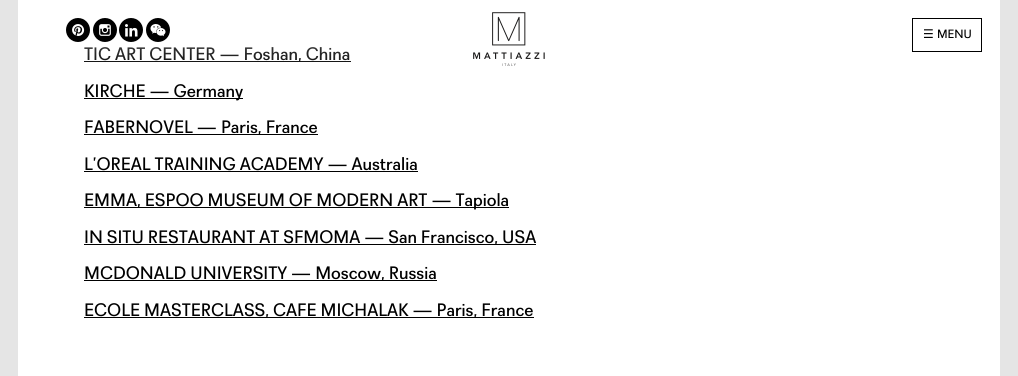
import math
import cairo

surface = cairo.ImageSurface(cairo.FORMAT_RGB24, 1018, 376)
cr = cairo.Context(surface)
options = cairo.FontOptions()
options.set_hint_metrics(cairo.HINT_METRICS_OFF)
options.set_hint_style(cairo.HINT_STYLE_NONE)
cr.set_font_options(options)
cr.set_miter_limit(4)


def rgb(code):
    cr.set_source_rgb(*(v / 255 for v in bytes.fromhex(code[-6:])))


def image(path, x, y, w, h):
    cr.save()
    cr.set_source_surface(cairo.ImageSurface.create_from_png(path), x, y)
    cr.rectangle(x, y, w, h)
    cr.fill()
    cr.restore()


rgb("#e5e5e5")
cr.paint()
rgb("#ffffff")
cr.rectangle(18, 0, 982, 376)
cr.fill()
image("img/1.png", 66, 18, 24, 24)
image("img/2.png", 93, 18, 24, 24)
image("img/3.png", 119, 18, 24, 24)
image("img/4.png", 146, 18, 24, 24)
image("img/5.png", 473, 12, 72, 54)
cr.rectangle(912.5, 18.5, 69, 33)
rgb("#000000")
cr.set_line_width(1)
cr.stroke()
for x, y, w, h, color in [
    (84, 61, 267, 1, "#000000"),
    (84, 98, 159, 1, "#000000"),
    (84, 134, 234, 1, "#000000"),
    (84, 171, 334, 1, "#000000"),
    (84, 207, 425, 1, "#000000"),
    (84, 244, 452, 1, "#000000"),
    (84, 280, 353, 1, "#000000"),
    (84, 317, 450, 1, "#000000"),
]:
    rgb(color)
    cr.rectangle(x, y, w, h)
    cr.fill()
cr.select_font_face("DejaVu Sans")
cr.set_font_size(12)
cr.move_to(923, 38)
cr.show_text("☰")
cr.select_font_face("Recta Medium")
cr.move_to(937, 38)
cr.show_text("MENU")
cr.set_font_size(18)
cr.move_to(84, 60)
cr.show_text("TIC ART CENTER — Foshan, China")
gradient = cairo.LinearGradient(509, 72, 509, 0)
gradient.add_color_stop_rgba(0, 1, 1, 1, 0)
gradient.add_color_stop_rgba(1, 1, 1, 1, 0.6)
cr.set_source(gradient)
cr.rectangle(84, 47, 267, 15)
cr.fill()
rgb("#000000")
for x, y, s in [
    (84, 97, "KIRCHE — Germany"),
    (84, 133, "FABERNOVEL — Paris, France"),
    (84, 170, "L’OREAL TRAINING ACADEMY — Australia"),
    (84, 206, "EMMA, ESPOO MUSEUM OF MODERN ART — Tapiola"),
    (84, 243, "IN SITU RESTAURANT AT SFMOMA — San Francisco, USA"),
    (84, 279, "MCDONALD UNIVERSITY — Moscow, Russia"),
    (84, 316, "ECOLE MASTERCLASS, CAFE MICHALAK — Paris, France"),
]:
    cr.move_to(x, y)
    cr.show_text(s)
surface.write_to_png("page.png")
